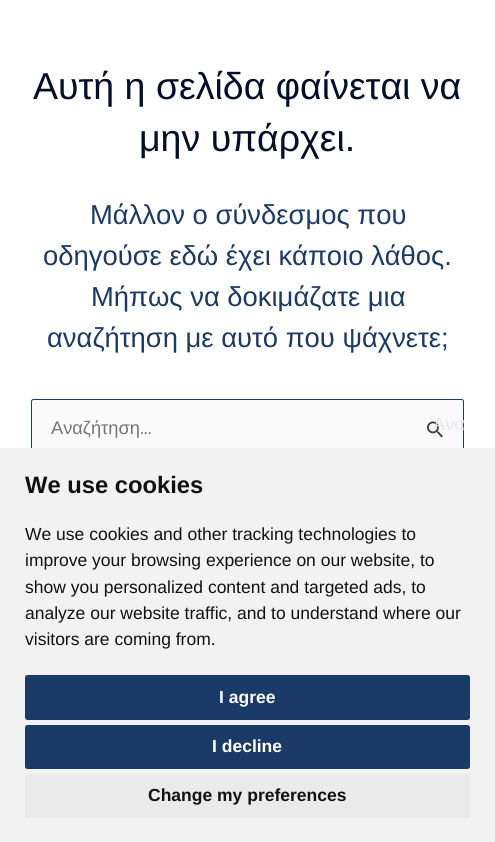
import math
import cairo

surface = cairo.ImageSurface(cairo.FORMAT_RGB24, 495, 842)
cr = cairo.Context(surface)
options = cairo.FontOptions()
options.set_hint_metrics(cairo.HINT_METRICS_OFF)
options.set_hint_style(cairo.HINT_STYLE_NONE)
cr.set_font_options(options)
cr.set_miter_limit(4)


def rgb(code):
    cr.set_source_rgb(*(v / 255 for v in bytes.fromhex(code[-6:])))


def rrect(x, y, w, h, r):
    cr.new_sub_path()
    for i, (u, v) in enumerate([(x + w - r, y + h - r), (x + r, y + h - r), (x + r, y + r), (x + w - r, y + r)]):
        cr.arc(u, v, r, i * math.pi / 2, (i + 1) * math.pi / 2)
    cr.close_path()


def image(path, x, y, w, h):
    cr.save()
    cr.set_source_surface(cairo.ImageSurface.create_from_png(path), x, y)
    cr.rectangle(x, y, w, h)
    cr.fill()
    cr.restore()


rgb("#ffffff")
cr.paint()
rgb("#fafafa")
rrect(31.5, 399.5, 432, 59, 2)
cr.fill_preserve()
rgb("#1a3a68")
cr.set_line_width(1)
cr.stroke()
image("img/1.png", 427, 421, 16, 17)
rgb("#f2f2f2")
cr.rectangle(0, 448, 495, 394)
cr.fill()
rgb("#1a3a68")
rrect(25, 675, 445, 45, 2.5)
cr.fill()
rrect(25, 725, 445, 44, 2.5)
cr.fill()
rgb("#eaeaea")
rrect(25, 774, 445, 44, 2.5)
cr.fill()
cr.select_font_face("Liberation Sans")
cr.set_font_size(37.5)
rgb("#000f2b")
cr.move_to(33, 99)
cr.show_text("Αυτή η σελίδα φαίνεται να")
cr.move_to(139, 151)
cr.show_text("μην υπάρχει.")
cr.set_font_size(27.4)
rgb("#1a3a68")
for x, y, s in [
    (90, 224, "Μάλλον ο σύνδεσμος που"),
    (43, 265, "οδηγούσε εδώ έχει κάποιο λάθος."),
    (91, 306, "Μήπως να δοκιμάζατε μια"),
    (47, 347, "αναζήτηση με αυτό που ψάχνετε;"),
]:
    cr.move_to(x, y)
    cr.show_text(s)
cr.set_font_size(18.25)
rgb("#757575")
cr.move_to(51, 434)
cr.show_text("Αναζήτηση")
cr.select_font_face("Montserrat")
cr.move_to(140, 434)
cr.show_text("...")
cr.select_font_face("Liberation Sans")
rgb("#e6e8ea")
cr.move_to(433, 430)
cr.show_text("Ανα")
cr.select_font_face("Liberation Sans", cairo.FONT_SLANT_NORMAL, cairo.FONT_WEIGHT_BOLD)
cr.set_font_size(23.75)
rgb("#111111")
cr.move_to(25, 493)
cr.show_text("We use cookies")
cr.select_font_face("Liberation Sans")
cr.set_font_size(17.5)
for x, y, s in [
    (25, 540, "We use cookies and other tracking technologies to"),
    (25, 566, "improve your browsing experience on our website, to"),
    (25, 593, "show you personalized content and targeted ads, to"),
    (25, 619, "analyze our website traffic, and to understand where our"),
    (25, 645, "visitors are coming from."),
]:
    cr.move_to(x, y)
    cr.show_text(s)
cr.select_font_face("Liberation Sans", cairo.FONT_SLANT_NORMAL, cairo.FONT_WEIGHT_BOLD)
rgb("#ffffff")
cr.move_to(219, 703)
cr.show_text("I agree")
cr.move_to(212, 752)
cr.show_text("I decline")
rgb("#111111")
cr.move_to(148, 801)
cr.show_text("Change my preferences")
surface.write_to_png("page.png")
